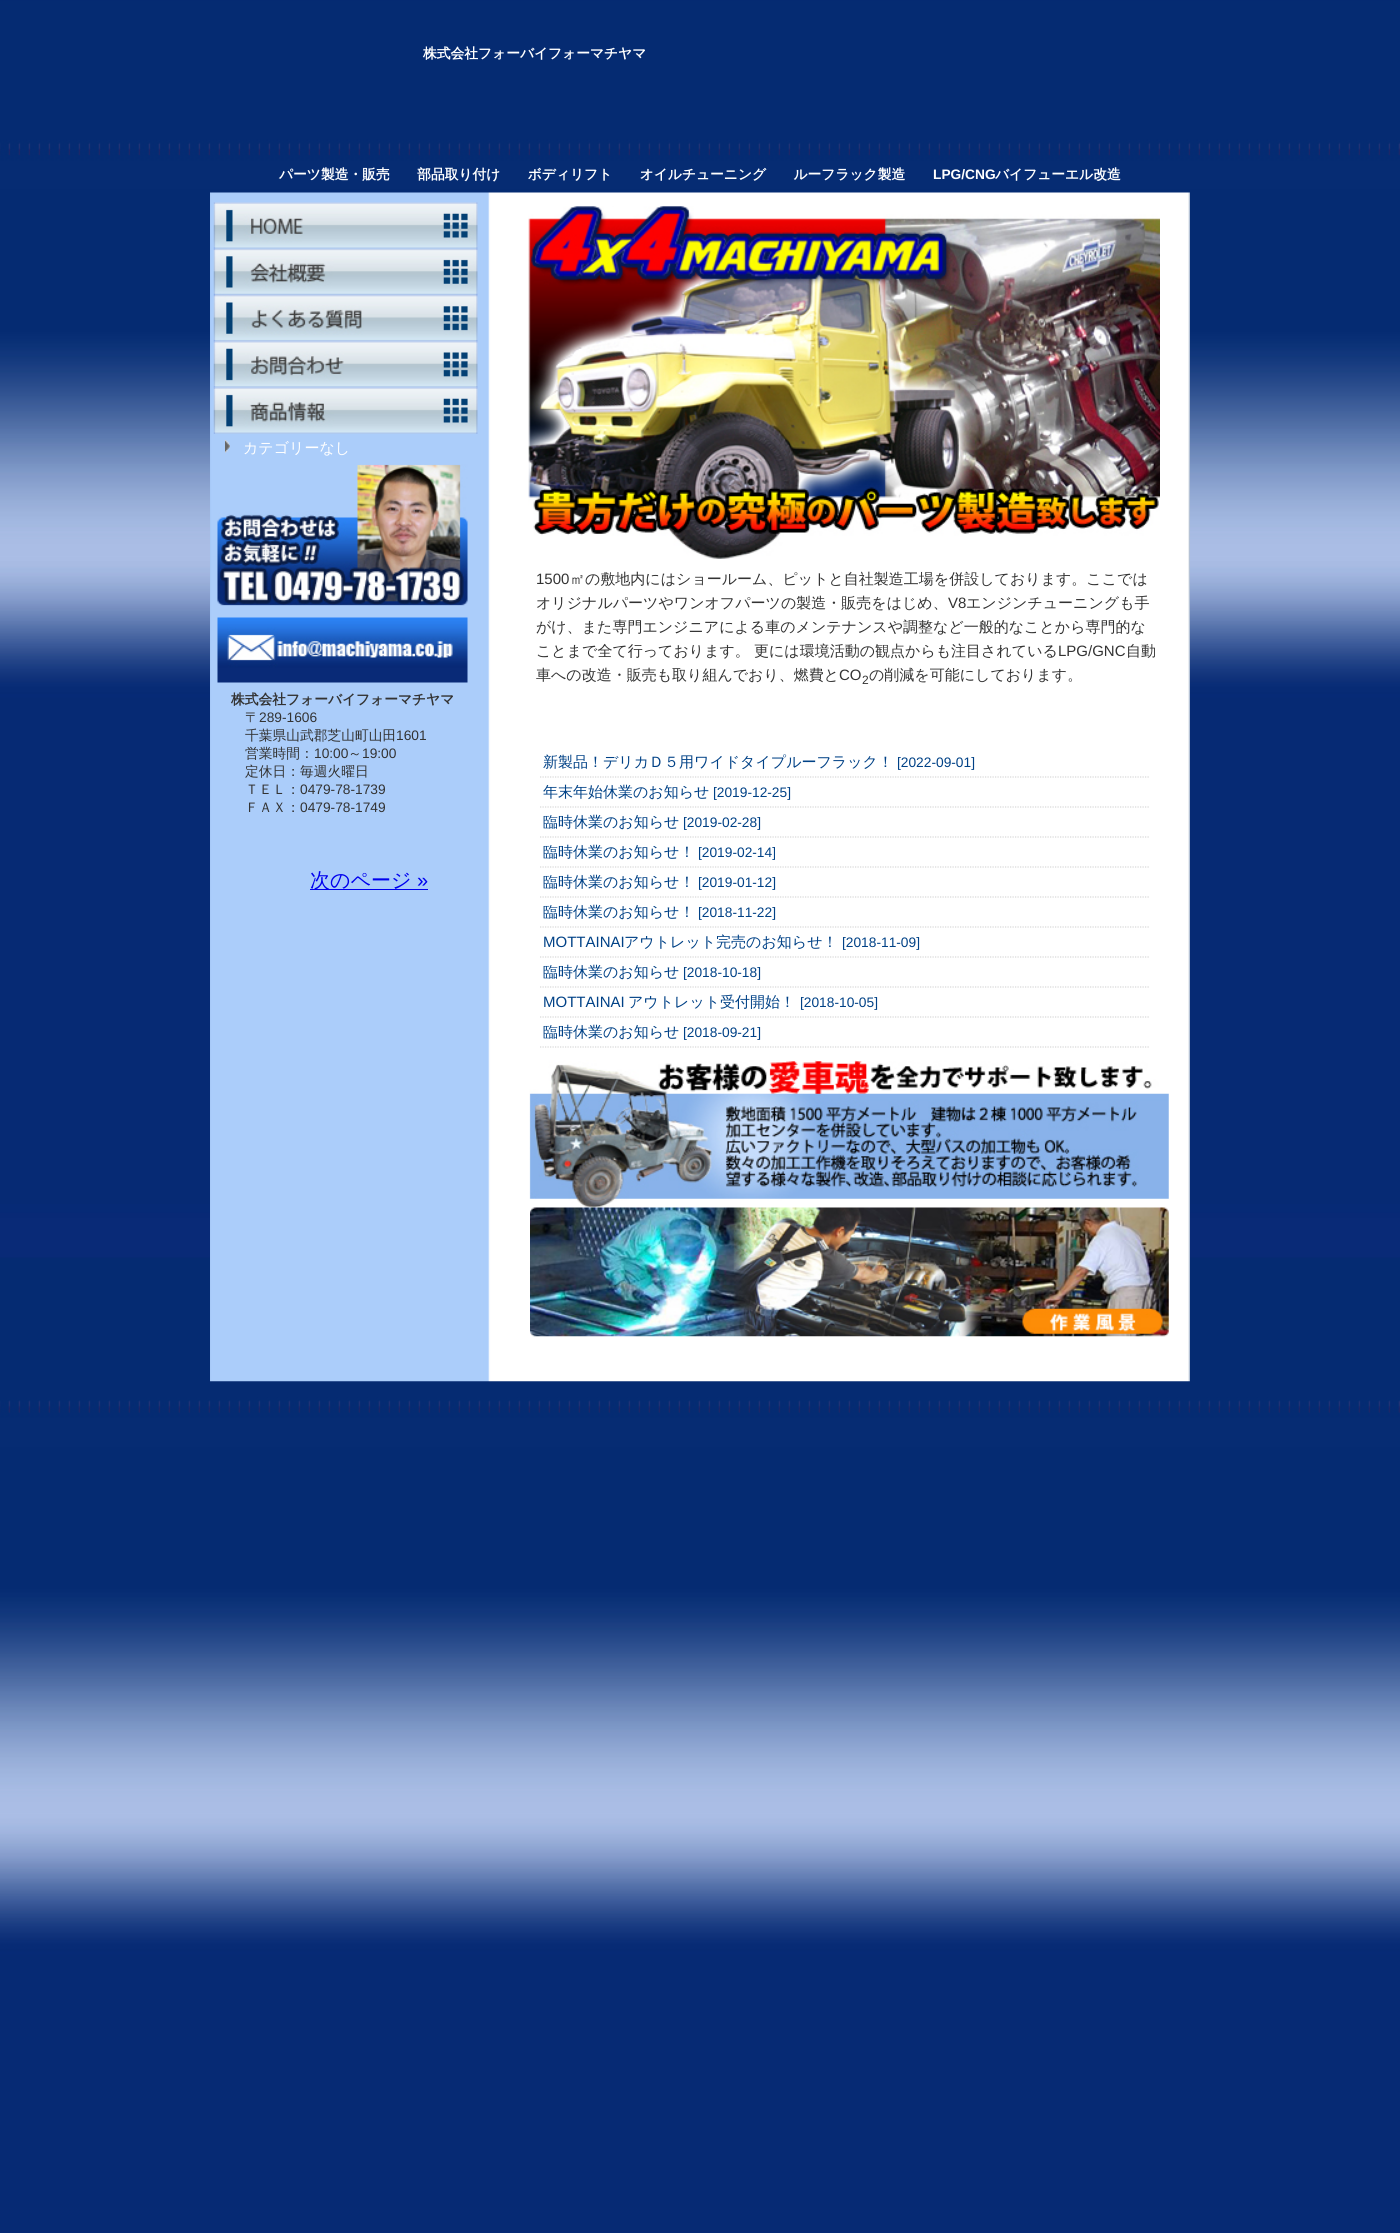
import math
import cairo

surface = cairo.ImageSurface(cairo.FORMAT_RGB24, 1400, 2233)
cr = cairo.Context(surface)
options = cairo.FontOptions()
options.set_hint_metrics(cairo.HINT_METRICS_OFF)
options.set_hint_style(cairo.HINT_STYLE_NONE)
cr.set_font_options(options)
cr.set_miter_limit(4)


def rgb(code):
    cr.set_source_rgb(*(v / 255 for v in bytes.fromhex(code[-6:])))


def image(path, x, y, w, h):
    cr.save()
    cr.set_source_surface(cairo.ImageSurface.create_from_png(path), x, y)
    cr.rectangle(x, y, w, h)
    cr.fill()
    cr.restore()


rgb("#ffffff")
cr.paint()
image("img/1.png", 0, 0, 1400, 2233)
image("img/2.png", 210, 192, 980, 1190)
image("img/3.png", 213, 202, 265, 47)
image("img/4.png", 213, 248, 265, 47)
image("img/5.png", 213, 295, 265, 47)
image("img/6.png", 213, 341, 265, 47)
image("img/7.png", 213, 387, 265, 47)
image("img/8.png", 225, 440, 5, 13)
image("img/9.png", 217, 464, 251, 142)
image("img/10.png", 217, 617, 251, 66)
image("img/11.png", 528, 206, 632, 353)
cr.new_path()
cr.move_to(540, 777)
cr.line_to(1149, 777)
rgb("#d8d8d8")
cr.set_line_width(1.2)
cr.set_dash([1.25, 1.25])
cr.stroke()
cr.new_path()
cr.move_to(540, 807)
cr.line_to(1149, 807)
cr.stroke()
cr.new_path()
cr.move_to(540, 837)
cr.line_to(1149, 837)
cr.stroke()
cr.new_path()
cr.move_to(540, 867)
cr.line_to(1149, 867)
cr.stroke()
cr.new_path()
cr.move_to(540, 897)
cr.line_to(1149, 897)
cr.stroke()
cr.new_path()
cr.move_to(540, 927)
cr.line_to(1149, 927)
cr.stroke()
cr.new_path()
cr.move_to(540, 957)
cr.line_to(1149, 957)
cr.stroke()
cr.new_path()
cr.move_to(540, 987)
cr.line_to(1149, 987)
cr.stroke()
cr.new_path()
cr.move_to(540, 1017)
cr.line_to(1149, 1017)
cr.stroke()
cr.new_path()
cr.move_to(540, 1047)
cr.line_to(1149, 1047)
cr.stroke()
image("img/12.png", 529, 1060, 640, 148)
image("img/13.png", 530, 1207, 639, 130)
rgb("#0000ee")
cr.rectangle(310, 889, 118, 1)
cr.fill()
cr.select_font_face("WenQuanYi Zen Hei", cairo.FONT_SLANT_NORMAL, cairo.FONT_WEIGHT_BOLD)
cr.set_font_size(13.75)
rgb("#ffffff")
cr.move_to(423, 58)
cr.show_text("株式会社フォーバイフォーマチヤマ")
cr.move_to(279, 179)
cr.show_text("パーツ製造・販売　　部品取り付け　　ボディリフト　　オイルチューニング　　ルーフラック製造")
cr.select_font_face("Liberation Sans", cairo.FONT_SLANT_NORMAL, cairo.FONT_WEIGHT_BOLD)
cr.move_to(933, 179)
cr.show_text("LPG/CNG")
cr.select_font_face("WenQuanYi Zen Hei", cairo.FONT_SLANT_NORMAL, cairo.FONT_WEIGHT_BOLD)
cr.move_to(995, 179)
cr.show_text("バイフューエル改造")
cr.select_font_face("WenQuanYi Zen Hei Medium")
cr.set_font_size(15)
cr.move_to(243, 453)
cr.show_text("カテゴリーなし")
cr.select_font_face("WenQuanYi Zen Hei", cairo.FONT_SLANT_NORMAL, cairo.FONT_WEIGHT_BOLD)
cr.set_font_size(13.75)
rgb("#333333")
cr.move_to(231, 704)
cr.show_text("株式会社フォーバイフォーマチヤマ")
cr.select_font_face("WenQuanYi Zen Hei Medium")
cr.move_to(245, 722)
cr.show_text("〒")
cr.select_font_face("Liberation Sans")
cr.move_to(259, 722)
cr.show_text("289-1606")
cr.select_font_face("WenQuanYi Zen Hei Medium")
cr.move_to(245, 740)
cr.show_text("千葉県山武郡芝山町山田")
cr.select_font_face("Liberation Sans")
cr.move_to(396, 740)
cr.show_text("1601")
cr.select_font_face("WenQuanYi Zen Hei Medium")
cr.move_to(245, 758)
cr.show_text("営業時間：")
cr.select_font_face("Liberation Sans")
cr.move_to(314, 758)
cr.show_text("10:00")
cr.select_font_face("WenQuanYi Zen Hei Medium")
cr.move_to(348, 758)
cr.show_text("～")
cr.select_font_face("Liberation Sans")
cr.move_to(362, 758)
cr.show_text("19:00")
cr.select_font_face("WenQuanYi Zen Hei Medium")
cr.move_to(245, 776)
cr.show_text("定休日：毎週火曜日")
cr.move_to(245, 794)
cr.show_text("ＴＥＬ：")
cr.select_font_face("Liberation Sans")
cr.move_to(300, 794)
cr.show_text("0479-78-1739")
cr.select_font_face("WenQuanYi Zen Hei Medium")
cr.move_to(245, 812)
cr.show_text("ＦＡＸ：")
cr.select_font_face("Liberation Sans")
cr.move_to(300, 812)
cr.show_text("0479-78-1749")
cr.set_font_size(15)
cr.move_to(536, 584)
cr.show_text("1500")
cr.select_font_face("WenQuanYi Zen Hei Medium")
cr.move_to(570, 584)
cr.show_text("㎡の敷地内にはショールーム、ピットと自社製造工場を併設しております。ここでは")
cr.move_to(536, 608)
cr.show_text("オリジナルパーツやワンオフパーツの製造・販売をはじめ、")
cr.select_font_face("Liberation Sans")
cr.move_to(948, 608)
cr.show_text("V8")
cr.select_font_face("WenQuanYi Zen Hei Medium")
for x, y, s in [
    (966, 608, "エンジンチューニングも手"),
    (536, 632, "がけ、また専門エンジニアによる車のメンテナンスや調整など一般的なことから専門的な"),
    (536, 656, "ことまで全て行っております。"),
    (754, 656, "更には環境活動の観点からも注目されている"),
]:
    cr.move_to(x, y)
    cr.show_text(s)
cr.select_font_face("Liberation Sans")
cr.move_to(1058, 656)
cr.show_text("LPG/GNC")
cr.select_font_face("WenQuanYi Zen Hei Medium")
cr.move_to(1126, 656)
cr.show_text("自動")
cr.move_to(536, 680)
cr.show_text("車への改造・販売も取り組んでおり、燃費と")
cr.select_font_face("Liberation Sans")
cr.move_to(839, 680)
cr.show_text("CO")
cr.set_font_size(12)
cr.move_to(862, 684)
cr.show_text("2")
cr.select_font_face("WenQuanYi Zen Hei Medium")
cr.set_font_size(15)
cr.move_to(869, 680)
cr.show_text("の削減を可能にしております。")
rgb("#004186")
cr.move_to(543, 767)
cr.show_text("新製品！デリカＤ５用ワイドタイプルーフラック！")
cr.select_font_face("Liberation Sans")
cr.set_font_size(13.75)
cr.move_to(897, 767)
cr.show_text("[2022-09-01]")
cr.select_font_face("WenQuanYi Zen Hei Medium")
cr.set_font_size(15)
cr.move_to(543, 797)
cr.show_text("年末年始休業のお知らせ")
cr.select_font_face("Liberation Sans")
cr.set_font_size(13.75)
cr.move_to(713, 797)
cr.show_text("[2019-12-25]")
cr.select_font_face("WenQuanYi Zen Hei Medium")
cr.set_font_size(15)
cr.move_to(543, 827)
cr.show_text("臨時休業のお知らせ")
cr.select_font_face("Liberation Sans")
cr.set_font_size(13.75)
cr.move_to(683, 827)
cr.show_text("[2019-02-28]")
cr.select_font_face("WenQuanYi Zen Hei Medium")
cr.set_font_size(15)
cr.move_to(543, 857)
cr.show_text("臨時休業のお知らせ！")
cr.select_font_face("Liberation Sans")
cr.set_font_size(13.75)
cr.move_to(698, 857)
cr.show_text("[2019-02-14]")
cr.select_font_face("WenQuanYi Zen Hei Medium")
cr.set_font_size(15)
cr.move_to(543, 887)
cr.show_text("臨時休業のお知らせ！")
cr.select_font_face("Liberation Sans")
cr.set_font_size(13.75)
cr.move_to(698, 887)
cr.show_text("[2019-01-12]")
cr.select_font_face("WenQuanYi Zen Hei Medium")
cr.set_font_size(15)
cr.move_to(543, 917)
cr.show_text("臨時休業のお知らせ！")
cr.select_font_face("Liberation Sans")
cr.set_font_size(13.75)
cr.move_to(698, 917)
cr.show_text("[2018-11-22]")
cr.set_font_size(15)
cr.move_to(543, 947)
cr.show_text("MOTTAINAI")
cr.select_font_face("WenQuanYi Zen Hei Medium")
cr.move_to(624, 947)
cr.show_text("アウトレット完売のお知らせ！")
cr.select_font_face("Liberation Sans")
cr.set_font_size(13.75)
cr.move_to(842, 947)
cr.show_text("[2018-11-09]")
cr.select_font_face("WenQuanYi Zen Hei Medium")
cr.set_font_size(15)
cr.move_to(543, 977)
cr.show_text("臨時休業のお知らせ")
cr.select_font_face("Liberation Sans")
cr.set_font_size(13.75)
cr.move_to(683, 977)
cr.show_text("[2018-10-18]")
cr.set_font_size(15)
cr.move_to(543, 1007)
cr.show_text("MOTTAINAI")
cr.select_font_face("WenQuanYi Zen Hei Medium")
cr.move_to(628, 1007)
cr.show_text("アウトレット受付開始！")
cr.select_font_face("Liberation Sans")
cr.set_font_size(13.75)
cr.move_to(800, 1007)
cr.show_text("[2018-10-05]")
cr.select_font_face("WenQuanYi Zen Hei Medium")
cr.set_font_size(15)
cr.move_to(543, 1037)
cr.show_text("臨時休業のお知らせ")
cr.select_font_face("Liberation Sans")
cr.set_font_size(13.75)
cr.move_to(683, 1037)
cr.show_text("[2018-09-21]")
cr.select_font_face("WenQuanYi Zen Hei Medium")
cr.set_font_size(20)
rgb("#0000ee")
cr.move_to(310, 887)
cr.show_text("次のページ")
cr.select_font_face("Liberation Sans")
cr.move_to(417, 887)
cr.show_text("»")
surface.write_to_png("page.png")
